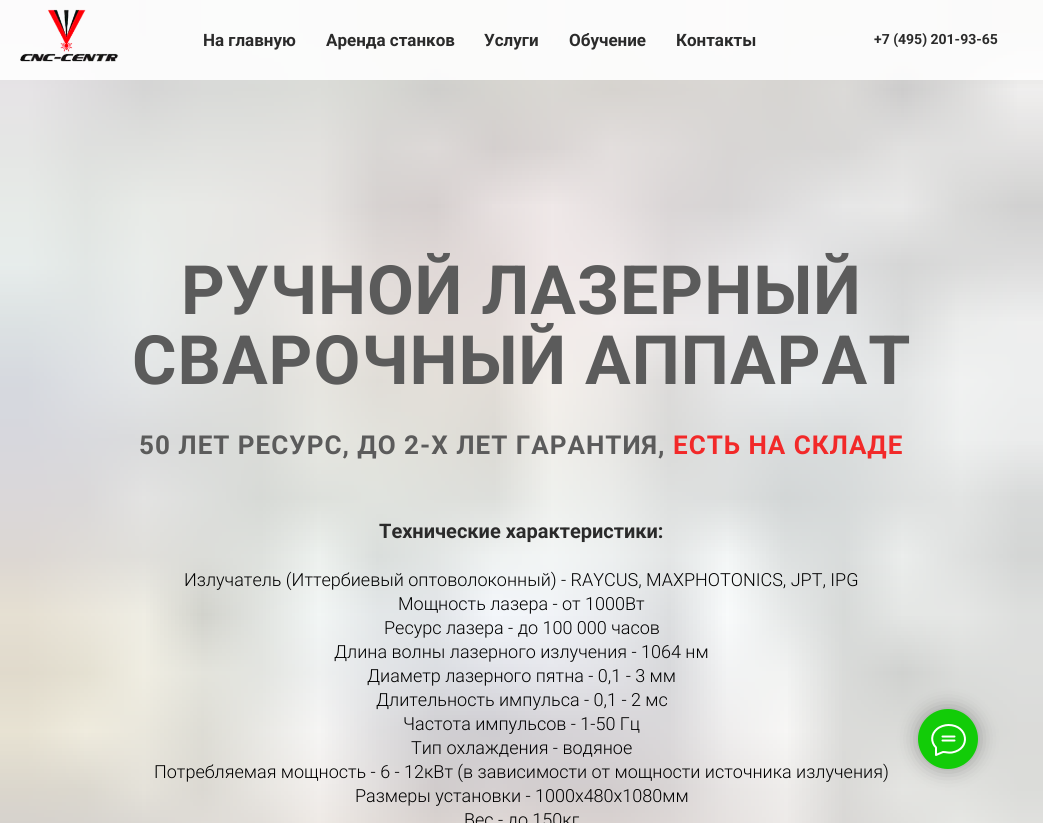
import math
import cairo

surface = cairo.ImageSurface(cairo.FORMAT_RGB24, 1043, 823)
cr = cairo.Context(surface)
options = cairo.FontOptions()
options.set_hint_metrics(cairo.HINT_METRICS_OFF)
options.set_hint_style(cairo.HINT_STYLE_NONE)
cr.set_font_options(options)
cr.set_miter_limit(4)


def rgb(code):
    cr.set_source_rgb(*(v / 255 for v in bytes.fromhex(code[-6:])))


def tracked(x, y, s, letter, word):
    cr.move_to(x, y)
    for ch in s:
        cr.show_text(ch)
        cr.rel_move_to(letter + word * (ch == ' '), 0)


def rrect(x, y, w, h, r):
    cr.new_sub_path()
    for i, (u, v) in enumerate([(x + w - r, y + h - r), (x + r, y + h - r), (x + r, y + r), (x + w - r, y + r)]):
        cr.arc(u, v, r, i * math.pi / 2, (i + 1) * math.pi / 2)
    cr.close_path()


def soft_shadow(x, y, w, h, r, blur, alpha):
    cr.push_group_with_content(cairo.CONTENT_ALPHA)
    cr.set_operator(cairo.OPERATOR_SOURCE)
    for i in range(15, -16, -2):
        e = blur * i / 6
        if min(w, h) + 2 * e > 0:
            cr.set_source_rgba(0, 0, 0, alpha * math.erfc((i - 1) / 8.5) / 2)
            rrect(x - e, y - e, w + 2 * e, h + 2 * e, max(0, min(r + e + blur * .6, min(w, h) / 2 + e)))
            cr.fill()
    cr.mask(cr.pop_group())


def image(path, x, y, w, h):
    cr.save()
    cr.set_source_surface(cairo.ImageSurface.create_from_png(path), x, y)
    cr.rectangle(x, y, w, h)
    cr.fill()
    cr.restore()


rgb("#ffffff")
cr.paint()
image("img/2.png", 0, 0, 1043, 823)
cr.set_source_rgba(1, 1, 1, 0.9)
cr.rectangle(0, 0, 1043, 80)
cr.fill()
image("img/1.png", 20, 9, 99, 53)
rgb("#000000")
soft_shadow(918, 709, 60, 60, 30, 10, 0.3)
rgb("#12cc08")
cr.arc(948, 739, 30, 0, 2 * math.pi)
cr.fill()
cr.new_path()
cr.move_to(942.5, 736.5)
cr.line_to(954.5, 736.5)
cr.move_to(942.5, 740.5)
cr.line_to(954.5, 740.5)
cr.move_to(936, 747.5)
cr.curve_to(930.5, 742, 931, 734, 937, 729)
cr.curve_to(940, 726.5, 944.5, 725, 948.5, 725)
cr.curve_to(968, 725, 971.5, 749, 952, 752.5)
cr.curve_to(948, 753, 946.5, 752, 943, 752)
cr.line_to(936, 755)
cr.line_to(936, 748)
cr.close_path()
rgb("#ffffff")
cr.set_line_cap(cairo.LINE_CAP_ROUND)
cr.set_line_join(cairo.LINE_JOIN_ROUND)
cr.stroke()
cr.select_font_face("Roboto", cairo.FONT_SLANT_NORMAL, cairo.FONT_WEIGHT_BOLD)
cr.set_font_size(17)
rgb("#2a2a2a")
for x, y, s in [
    (203, 46, "На главную"),
    (326, 46, "Аренда станков"),
    (484, 46, "Услуги"),
    (569, 46, "Обучение"),
    (676, 46, "Контакты"),
]:
    cr.move_to(x, y)
    cr.show_text(s)
cr.set_font_size(14)
cr.move_to(874, 44)
cr.show_text("+7 (495) 201-93-65")
cr.set_font_size(68)
rgb("#5b5b5b")
tracked(181, 314, "РУЧНОЙ ЛАЗЕРНЫЙ", 1, 0)
tracked(132, 384, "СВАРОЧНЫЙ АППАРАТ", 1, 0)
cr.set_font_size(26)
tracked(139, 454, "50 ЛЕТ РЕСУРС, ДО 2-Х ЛЕТ ГАРАНТИЯ,", 1, 0)
rgb("#f22929")
tracked(673, 454, "ЕСТЬ НА СКЛАДЕ", 1, 0)
cr.set_font_size(20)
rgb("#2a2a2a")
cr.move_to(379, 538)
cr.show_text("Технические характеристики:")
cr.select_font_face("Roboto Light")
cr.set_font_size(18)
rgb("#000000")
for x, y, s in [
    (184, 586, "Излучатель (Иттербиевый оптоволоконный) - RAYCUS, MAXPHOTONICS, JPT, IPG"),
    (398, 610, "Мощность лазера - от 1000Вт"),
    (384, 634, "Ресурс лазера - до 100 000 часов"),
    (334, 658, "Длина волны лазерного излучения - 1064 нм"),
    (367, 682, "Диаметр лазерного пятна - 0,1 - 3 мм"),
    (376, 706, "Длительность импульса - 0,1 - 2 мс"),
    (403, 730, "Частота импульсов - 1-50 Гц"),
    (411, 754, "Тип охлаждения - водяное"),
    (154, 778, "Потребляемая мощность - 6 - 12кВт (в зависимости от мощности источника излучения)"),
    (355, 802, "Размеры установки - 1000х480х1080мм"),
    (464, 826, "Вес - до 150кг"),
]:
    cr.move_to(x, y)
    cr.show_text(s)
surface.write_to_png("page.png")
